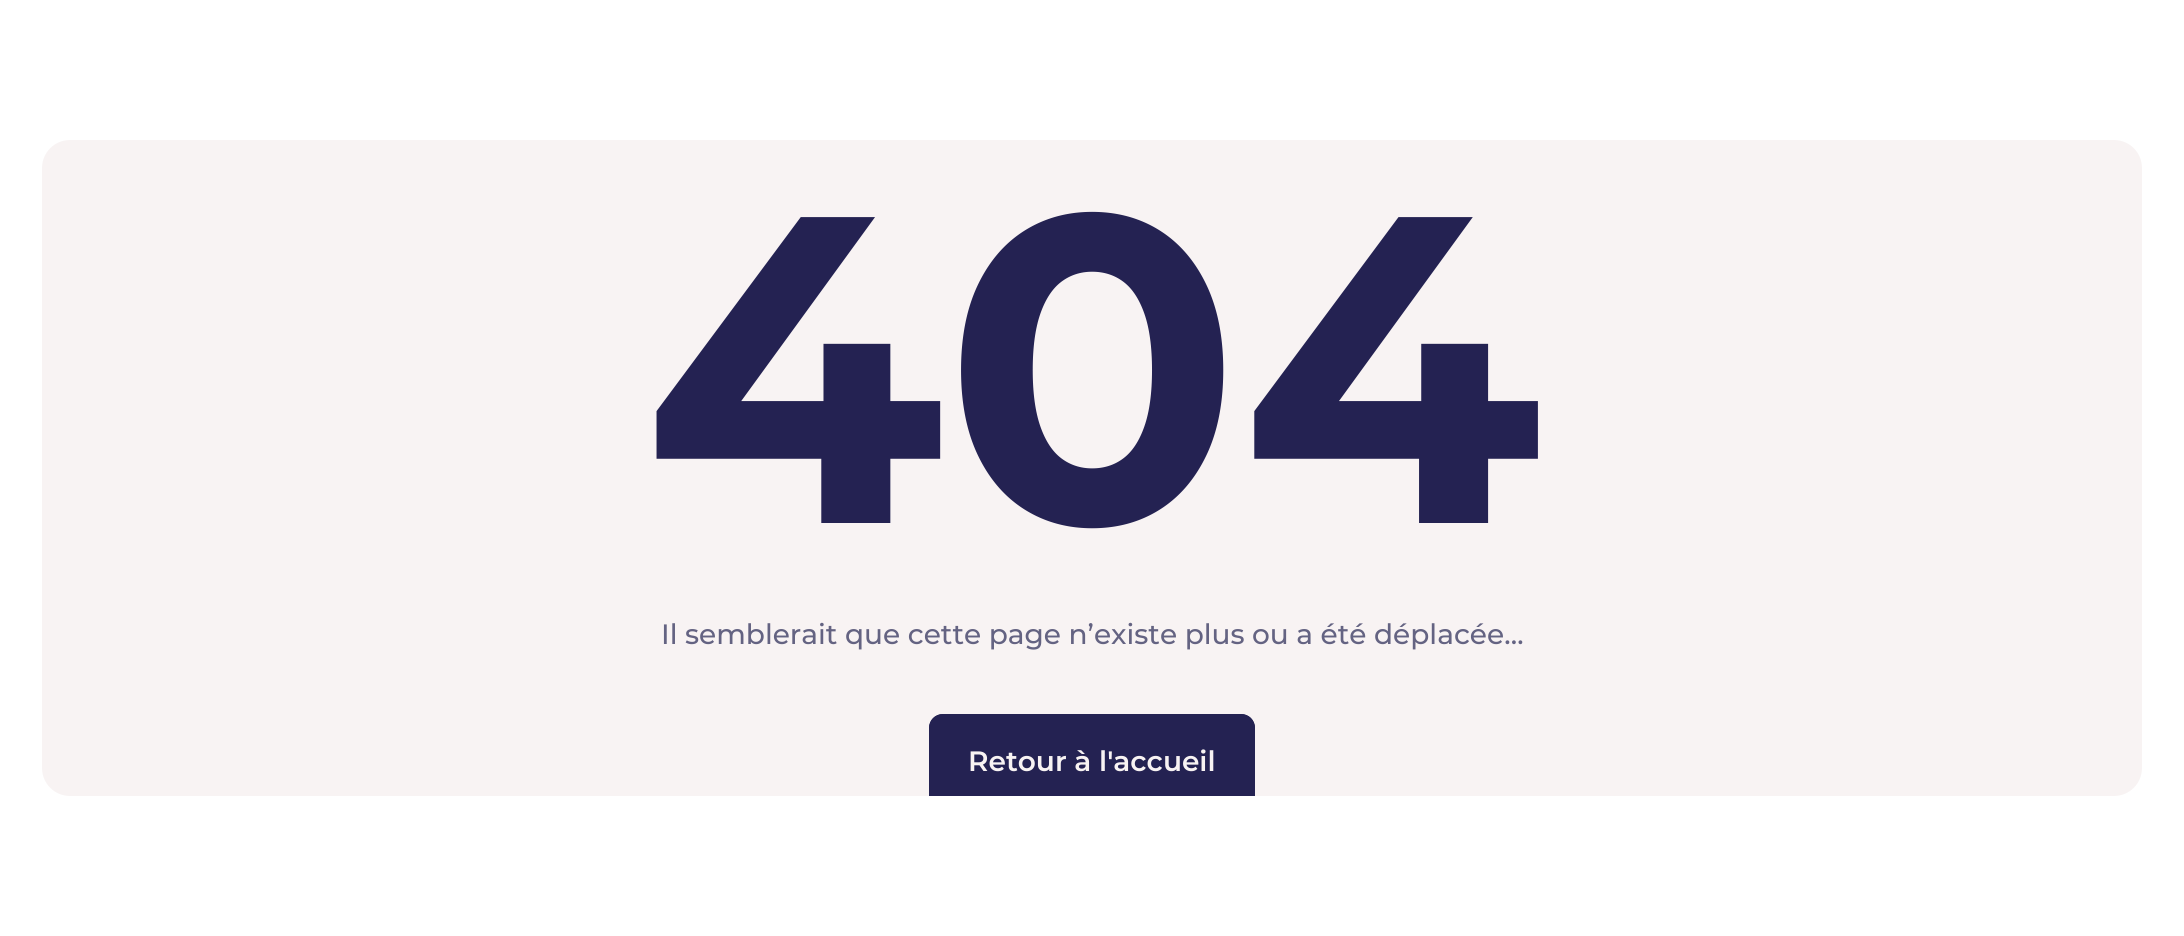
import math
import cairo

surface = cairo.ImageSurface(cairo.FORMAT_RGB24, 2184, 936)
cr = cairo.Context(surface)
options = cairo.FontOptions()
options.set_hint_metrics(cairo.HINT_METRICS_OFF)
options.set_hint_style(cairo.HINT_STYLE_NONE)
cr.set_font_options(options)
cr.set_miter_limit(4)


def rgb(code):
    cr.set_source_rgb(*(v / 255 for v in bytes.fromhex(code[-6:])))


def rrect(x, y, w, h, r):
    cr.new_sub_path()
    for i, (u, v) in enumerate([(x + w - r, y + h - r), (x + r, y + h - r), (x + r, y + r), (x + w - r, y + r)]):
        cr.arc(u, v, r, i * math.pi / 2, (i + 1) * math.pi / 2)
    cr.close_path()


rgb("#ffffff")
cr.paint()
rgb("#f8f3f3")
rrect(42, 140, 2100, 656, 28)
cr.fill()
rgb("#242252")
cr.new_path()
cr.move_to(943, 714)
cr.line_to(1241, 714)
cr.curve_to(1248.5, 714, 1255, 720.5, 1255, 728)
cr.line_to(1255, 796)
cr.line_to(929, 796)
cr.line_to(929, 728)
cr.curve_to(929, 720.5, 935.5, 714, 943, 714)
cr.close_path()
cr.fill()
cr.new_path()
cr.move_to(943, 714)
cr.curve_to(935, 714, 929, 720, 929, 728)
cr.line_to(929, 796)
cr.line_to(933, 796)
cr.line_to(933, 728)
cr.curve_to(933, 722, 937, 718, 943, 718)
cr.line_to(1241, 718)
cr.curve_to(1247, 718, 1251, 722, 1251, 728)
cr.line_to(1251, 796)
cr.line_to(1255, 796)
cr.line_to(1255, 728)
cr.curve_to(1255, 720, 1249, 714, 1241, 714)
cr.close_path()
cr.fill()
cr.select_font_face("Montserrat", cairo.FONT_SLANT_NORMAL, cairo.FONT_WEIGHT_BOLD)
cr.set_font_size(437)
cr.move_to(643, 523)
cr.show_text("404")
cr.select_font_face("Montserrat Medium")
cr.set_font_size(28)
rgb("#646382")
cr.move_to(661, 644)
cr.show_text("Il semblerait que cette page n’existe plus ou a été déplacée…")
cr.select_font_face("Montserrat SemiBold")
rgb("#f8f3f3")
cr.move_to(968, 771)
cr.show_text("Retour à l'accueil")
surface.write_to_png("page.png")
